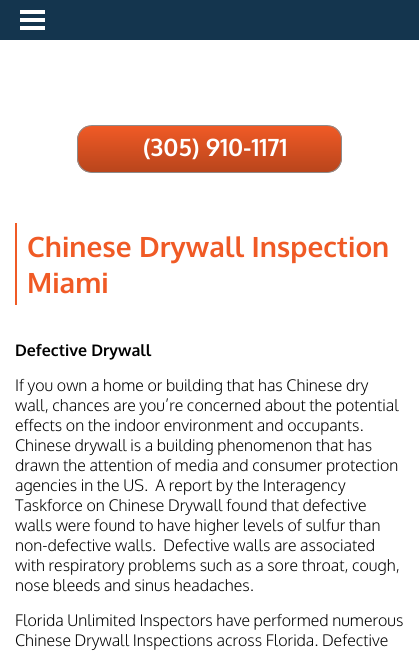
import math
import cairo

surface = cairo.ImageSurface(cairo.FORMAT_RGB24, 419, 651)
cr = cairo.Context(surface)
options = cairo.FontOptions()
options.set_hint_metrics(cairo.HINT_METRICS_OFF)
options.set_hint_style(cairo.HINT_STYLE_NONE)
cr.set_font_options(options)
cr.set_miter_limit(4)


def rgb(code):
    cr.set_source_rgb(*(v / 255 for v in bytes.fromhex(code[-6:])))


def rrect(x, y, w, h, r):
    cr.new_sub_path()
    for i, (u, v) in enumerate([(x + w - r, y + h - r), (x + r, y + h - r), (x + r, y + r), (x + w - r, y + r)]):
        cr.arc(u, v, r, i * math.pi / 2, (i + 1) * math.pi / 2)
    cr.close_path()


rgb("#ffffff")
cr.paint()
for x, y, w, h, color in [
    (0, 0, 419, 40, "#14354e"),
    (20, 10, 25, 4, "#ffffff"),
    (20, 18, 25, 4, "#ffffff"),
    (20, 26, 25, 4, "#ffffff"),
]:
    rgb(color)
    cr.rectangle(x, y, w, h)
    cr.fill()
cr.save()
rrect(77, 125, 265, 48, 15)
cr.clip()
gradient = cairo.LinearGradient(210, 126, 210, 172)
gradient.add_color_stop_rgba(0, 0.941, 0.353, 0.149, 1)
gradient.add_color_stop_rgba(1, 0.725, 0.271, 0.11, 1)
cr.set_source(gradient)
cr.rectangle(77, 126, 265, 46)
cr.fill()
cr.restore()
rrect(77.5, 125.5, 264, 47, 14.5)
rgb("#8c8c8c")
cr.set_line_width(1)
cr.stroke()
rgb("#f05a25")
cr.rectangle(15, 223, 2, 82)
cr.fill()
cr.select_font_face("Oxygen", cairo.FONT_SLANT_NORMAL, cairo.FONT_WEIGHT_BOLD)
cr.set_font_size(24)
rgb("#ffffff")
cr.move_to(143, 156)
cr.show_text("(305) 910-1171")
cr.set_font_size(28)
rgb("#f05a25")
cr.move_to(27, 257)
cr.show_text("Chinese Drywall Inspection")
cr.move_to(27, 293)
cr.show_text("Miami")
cr.set_font_size(16)
rgb("#000000")
cr.move_to(15, 356)
cr.show_text("Defective Drywall")
cr.select_font_face("Oxygen Light")
for x, y, s in [
    (15, 391, "If you own a home or building that has Chinese dry"),
    (15, 411, "wall, chances are you’re concerned about the potential"),
    (15, 431, "effects on the indoor environment and occupants."),
    (15, 451, "Chinese drywall is a building phenomenon that has"),
    (15, 471, "drawn the attention of media and consumer protection"),
    (15, 491, "agencies in the US.  A report by the Interagency"),
    (15, 511, "Taskforce on Chinese Drywall found that defective"),
    (15, 531, "walls were found to have higher levels of sulfur than"),
    (15, 551, "non-defective walls.  Defective walls are associated"),
    (15, 571, "with respiratory problems such as a sore throat, cough,"),
    (15, 591, "nose bleeds and sinus headaches."),
    (15, 626, "Florida Unlimited Inspectors have performed numerous"),
    (15, 646, "Chinese Drywall Inspections across Florida. Defective"),
]:
    cr.move_to(x, y)
    cr.show_text(s)
surface.write_to_png("page.png")
